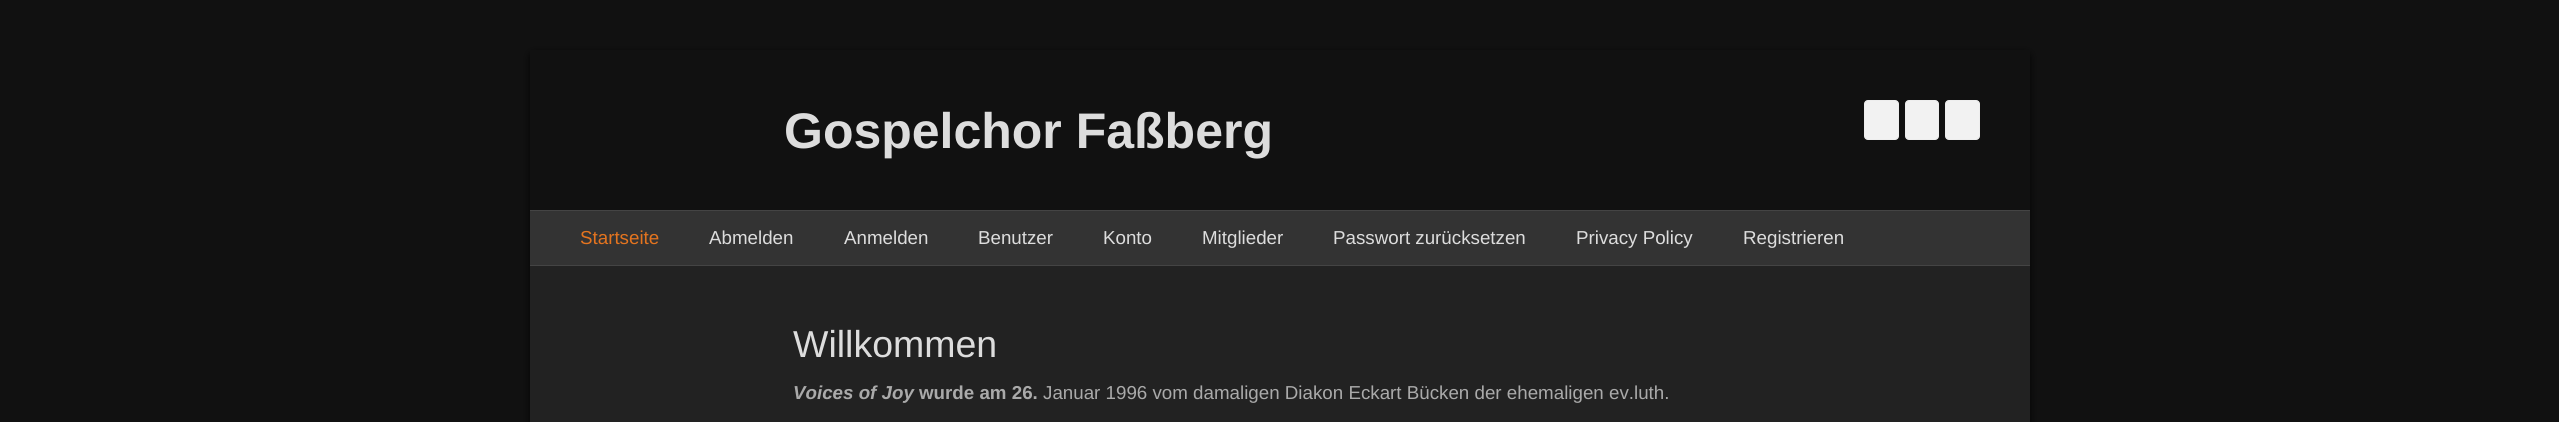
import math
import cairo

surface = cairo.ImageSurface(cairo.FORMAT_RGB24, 2559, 422)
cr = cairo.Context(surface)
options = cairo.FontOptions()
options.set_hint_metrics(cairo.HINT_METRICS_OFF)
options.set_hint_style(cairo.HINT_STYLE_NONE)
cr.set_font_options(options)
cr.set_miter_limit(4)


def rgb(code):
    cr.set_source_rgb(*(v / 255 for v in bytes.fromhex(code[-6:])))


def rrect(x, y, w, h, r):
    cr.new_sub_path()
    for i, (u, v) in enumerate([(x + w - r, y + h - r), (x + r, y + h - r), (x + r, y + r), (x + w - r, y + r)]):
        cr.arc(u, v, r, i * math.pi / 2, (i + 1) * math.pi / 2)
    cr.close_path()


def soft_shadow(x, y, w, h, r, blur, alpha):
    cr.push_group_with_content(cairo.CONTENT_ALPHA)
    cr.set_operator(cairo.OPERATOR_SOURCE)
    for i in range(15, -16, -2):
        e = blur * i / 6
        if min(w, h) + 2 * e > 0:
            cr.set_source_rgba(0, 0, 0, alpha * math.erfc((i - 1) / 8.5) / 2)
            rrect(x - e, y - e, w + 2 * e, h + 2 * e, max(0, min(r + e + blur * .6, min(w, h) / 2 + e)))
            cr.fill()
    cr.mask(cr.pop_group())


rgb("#111111")
cr.paint()
rgb("#000000")
soft_shadow(530, 53, 1500, 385, 4, 4, 0.8)
rgb("#222222")
cr.rectangle(530, 266, 1500, 156)
cr.fill()
rgb("#111111")
cr.rectangle(530, 50, 1500, 160)
cr.fill()
rgb("#f2f2f2")
rrect(1864.5, 100.5, 34, 39, 3.5)
cr.fill_preserve()
rgb("#eeeeee")
cr.set_line_width(1)
cr.stroke()
rgb("#f2f2f2")
rrect(1905.5, 100.5, 33, 39, 3.5)
cr.fill_preserve()
rgb("#eeeeee")
cr.stroke()
rgb("#f2f2f2")
rrect(1945.5, 100.5, 34, 39, 3.5)
cr.fill_preserve()
rgb("#eeeeee")
cr.stroke()
for x, y, w, h, color in [
    (530, 211, 1500, 54, "#333333"),
    (530, 210, 1500, 1, "#444444"),
    (530, 265, 1500, 1, "#444444"),
]:
    rgb(color)
    cr.rectangle(x, y, w, h)
    cr.fill()
cr.select_font_face("Liberation Sans", cairo.FONT_SLANT_NORMAL, cairo.FONT_WEIGHT_BOLD)
cr.set_font_size(50)
rgb("#dddddd")
cr.move_to(784, 148)
cr.show_text("Gospelchor Faßberg")
cr.select_font_face("Liberation Sans")
cr.set_font_size(18.75)
rgb("#e4741f")
cr.move_to(580, 244)
cr.show_text("Startseite")
rgb("#dddddd")
for x, y, s in [
    (709, 244, "Abmelden"),
    (844, 244, "Anmelden"),
    (978, 244, "Benutzer"),
    (1103, 244, "Konto"),
    (1202, 244, "Mitglieder"),
    (1333, 244, "Passwort zurücksetzen"),
    (1576, 244, "Privacy Policy"),
    (1743, 244, "Registrieren"),
]:
    cr.move_to(x, y)
    cr.show_text(s)
cr.set_font_size(37.5)
cr.move_to(793, 357)
cr.show_text("Willkommen")
cr.select_font_face("Liberation Sans", cairo.FONT_SLANT_ITALIC, cairo.FONT_WEIGHT_BOLD)
cr.set_font_size(18.75)
rgb("#aaaaaa")
cr.move_to(793, 399)
cr.show_text("Voices of Joy")
cr.select_font_face("Liberation Sans", cairo.FONT_SLANT_NORMAL, cairo.FONT_WEIGHT_BOLD)
cr.move_to(919, 399)
cr.show_text("wurde am 26.")
cr.select_font_face("Liberation Sans")
cr.move_to(1043, 399)
cr.show_text("Januar 1996 vom damaligen Diakon Eckart Bücken der ehemaligen ev.luth.")
surface.write_to_png("page.png")
